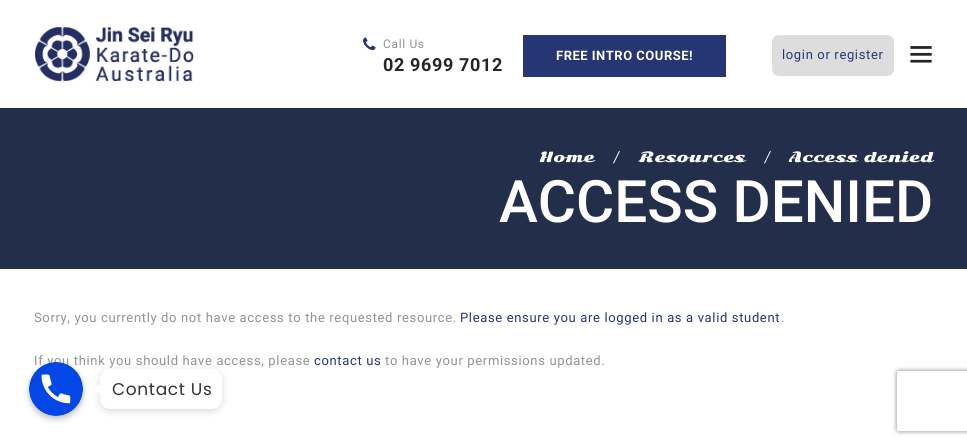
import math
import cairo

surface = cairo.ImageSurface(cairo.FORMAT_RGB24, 967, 445)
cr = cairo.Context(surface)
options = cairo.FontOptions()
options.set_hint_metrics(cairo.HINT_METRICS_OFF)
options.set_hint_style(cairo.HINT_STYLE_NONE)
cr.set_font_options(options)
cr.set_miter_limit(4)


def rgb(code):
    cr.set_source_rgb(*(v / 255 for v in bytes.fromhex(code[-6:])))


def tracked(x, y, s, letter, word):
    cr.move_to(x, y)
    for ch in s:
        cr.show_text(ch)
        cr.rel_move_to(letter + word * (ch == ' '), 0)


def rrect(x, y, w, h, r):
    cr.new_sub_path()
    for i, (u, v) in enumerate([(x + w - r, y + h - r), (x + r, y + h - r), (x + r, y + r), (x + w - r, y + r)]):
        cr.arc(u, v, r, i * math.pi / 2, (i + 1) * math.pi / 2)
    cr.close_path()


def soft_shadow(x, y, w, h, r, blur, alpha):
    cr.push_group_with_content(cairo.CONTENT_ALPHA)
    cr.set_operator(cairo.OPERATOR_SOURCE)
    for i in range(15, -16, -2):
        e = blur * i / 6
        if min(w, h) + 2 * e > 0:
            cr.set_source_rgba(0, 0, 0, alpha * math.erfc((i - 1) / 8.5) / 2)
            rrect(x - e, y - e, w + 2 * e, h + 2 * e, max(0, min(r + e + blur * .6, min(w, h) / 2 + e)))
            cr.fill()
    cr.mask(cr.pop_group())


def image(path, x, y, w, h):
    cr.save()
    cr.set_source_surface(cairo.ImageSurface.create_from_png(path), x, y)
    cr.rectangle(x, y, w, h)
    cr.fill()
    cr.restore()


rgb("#ffffff")
cr.paint()
image("img/1.png", 35, 27, 159, 55)
image("img/2.png", 363, 37, 13, 14)
rgb("#263675")
cr.rectangle(523, 35, 203, 42)
cr.fill()
rgb("#dddddd")
rrect(772, 35, 122, 41, 7)
cr.fill()
image("img/3.png", 910, 46, 22, 17)
rgb("#232e4a")
cr.rectangle(0, 108, 967, 161)
cr.fill()
rgb("#000000")
soft_shadow(29, 365, 54, 54, 27, 3, 0.25)
soft_shadow(100, 371, 122, 40, 10, 4, 0.15)
rgb("#ffffff")
rrect(100, 369, 122, 40, 10)
cr.fill()
cr.new_path()
cr.move_to(101, 384)
cr.line_to(101, 394)
cr.line_to(91, 389)
cr.close_path()
cr.fill()
cr.save()
cr.set_fill_rule(cairo.FILL_RULE_EVEN_ODD)
cr.new_path()
cr.move_to(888, 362)
cr.line_to(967, 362)
cr.line_to(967, 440)
cr.line_to(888, 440)
cr.close_path()
cr.move_to(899, 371)
cr.line_to(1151, 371)
cr.curve_to(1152, 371, 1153, 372, 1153, 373)
cr.line_to(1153, 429)
cr.curve_to(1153, 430, 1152, 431, 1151, 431)
cr.line_to(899, 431)
cr.curve_to(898, 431, 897, 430, 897, 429)
cr.line_to(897, 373)
cr.curve_to(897, 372, 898, 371, 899, 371)
cr.close_path()
cr.clip()
rgb("#808080")
soft_shadow(897, 371, 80, 60, 2, 2.5, 1)
cr.restore()
cr.select_font_face("Roboto")
cr.set_font_size(12)
rgb("#919394")
tracked(383, 48, "Call Us", 0.65, 0)
cr.select_font_face("Roboto", cairo.FONT_SLANT_NORMAL, cairo.FONT_WEIGHT_BOLD)
cr.set_font_size(18)
rgb("#252525")
tracked(383, 71, "02 9699 7012", 0.65, 0)
cr.set_font_size(13)
rgb("#ffffff")
tracked(556, 60, "FREE INTRO COURSE!", 0.5, 0)
cr.select_font_face("Roboto")
rgb("#263675")
tracked(782, 59, "login or register", 0.65, 0)
cr.select_font_face("Sonsie One")
cr.set_font_size(13.9)
rgb("#ffffff")
for x, y, s in [
    (539, 162, "Home"),
    (612, 162, "/"),
    (639, 162, "Resources"),
    (763, 162, "/"),
    (789, 162, "Access denied"),
]:
    tracked(x, y, s, 0.65, 0)
cr.select_font_face("Roboto Medium")
cr.set_font_size(58.5)
cr.move_to(499, 222)
cr.show_text("ACCESS DENIED")
cr.select_font_face("Roboto")
cr.set_font_size(13)
rgb("#919394")
tracked(34, 322, "Sorry, you currently do not have access to the requested resource.", 0.65, 0)
rgb("#263675")
tracked(460, 322, "Please ensure you are logged in as a valid student", 0.65, 0)
rgb("#919394")
tracked(781, 322, ".", 0.65, 0)
tracked(34, 365, "If you think you should have access, please", 0.65, 0)
rgb("#263675")
tracked(314, 365, "contact us", 0.65, 0)
rgb("#919394")
tracked(385, 365, "to have your permissions updated.", 0.65, 0)
image("img/4.png", 29, 362, 54, 54)
cr.select_font_face("Poppins")
cr.set_font_size(17)
rgb("#333333")
tracked(112, 395, "Contact Us", 0.65, 0)
surface.write_to_png("page.png")
